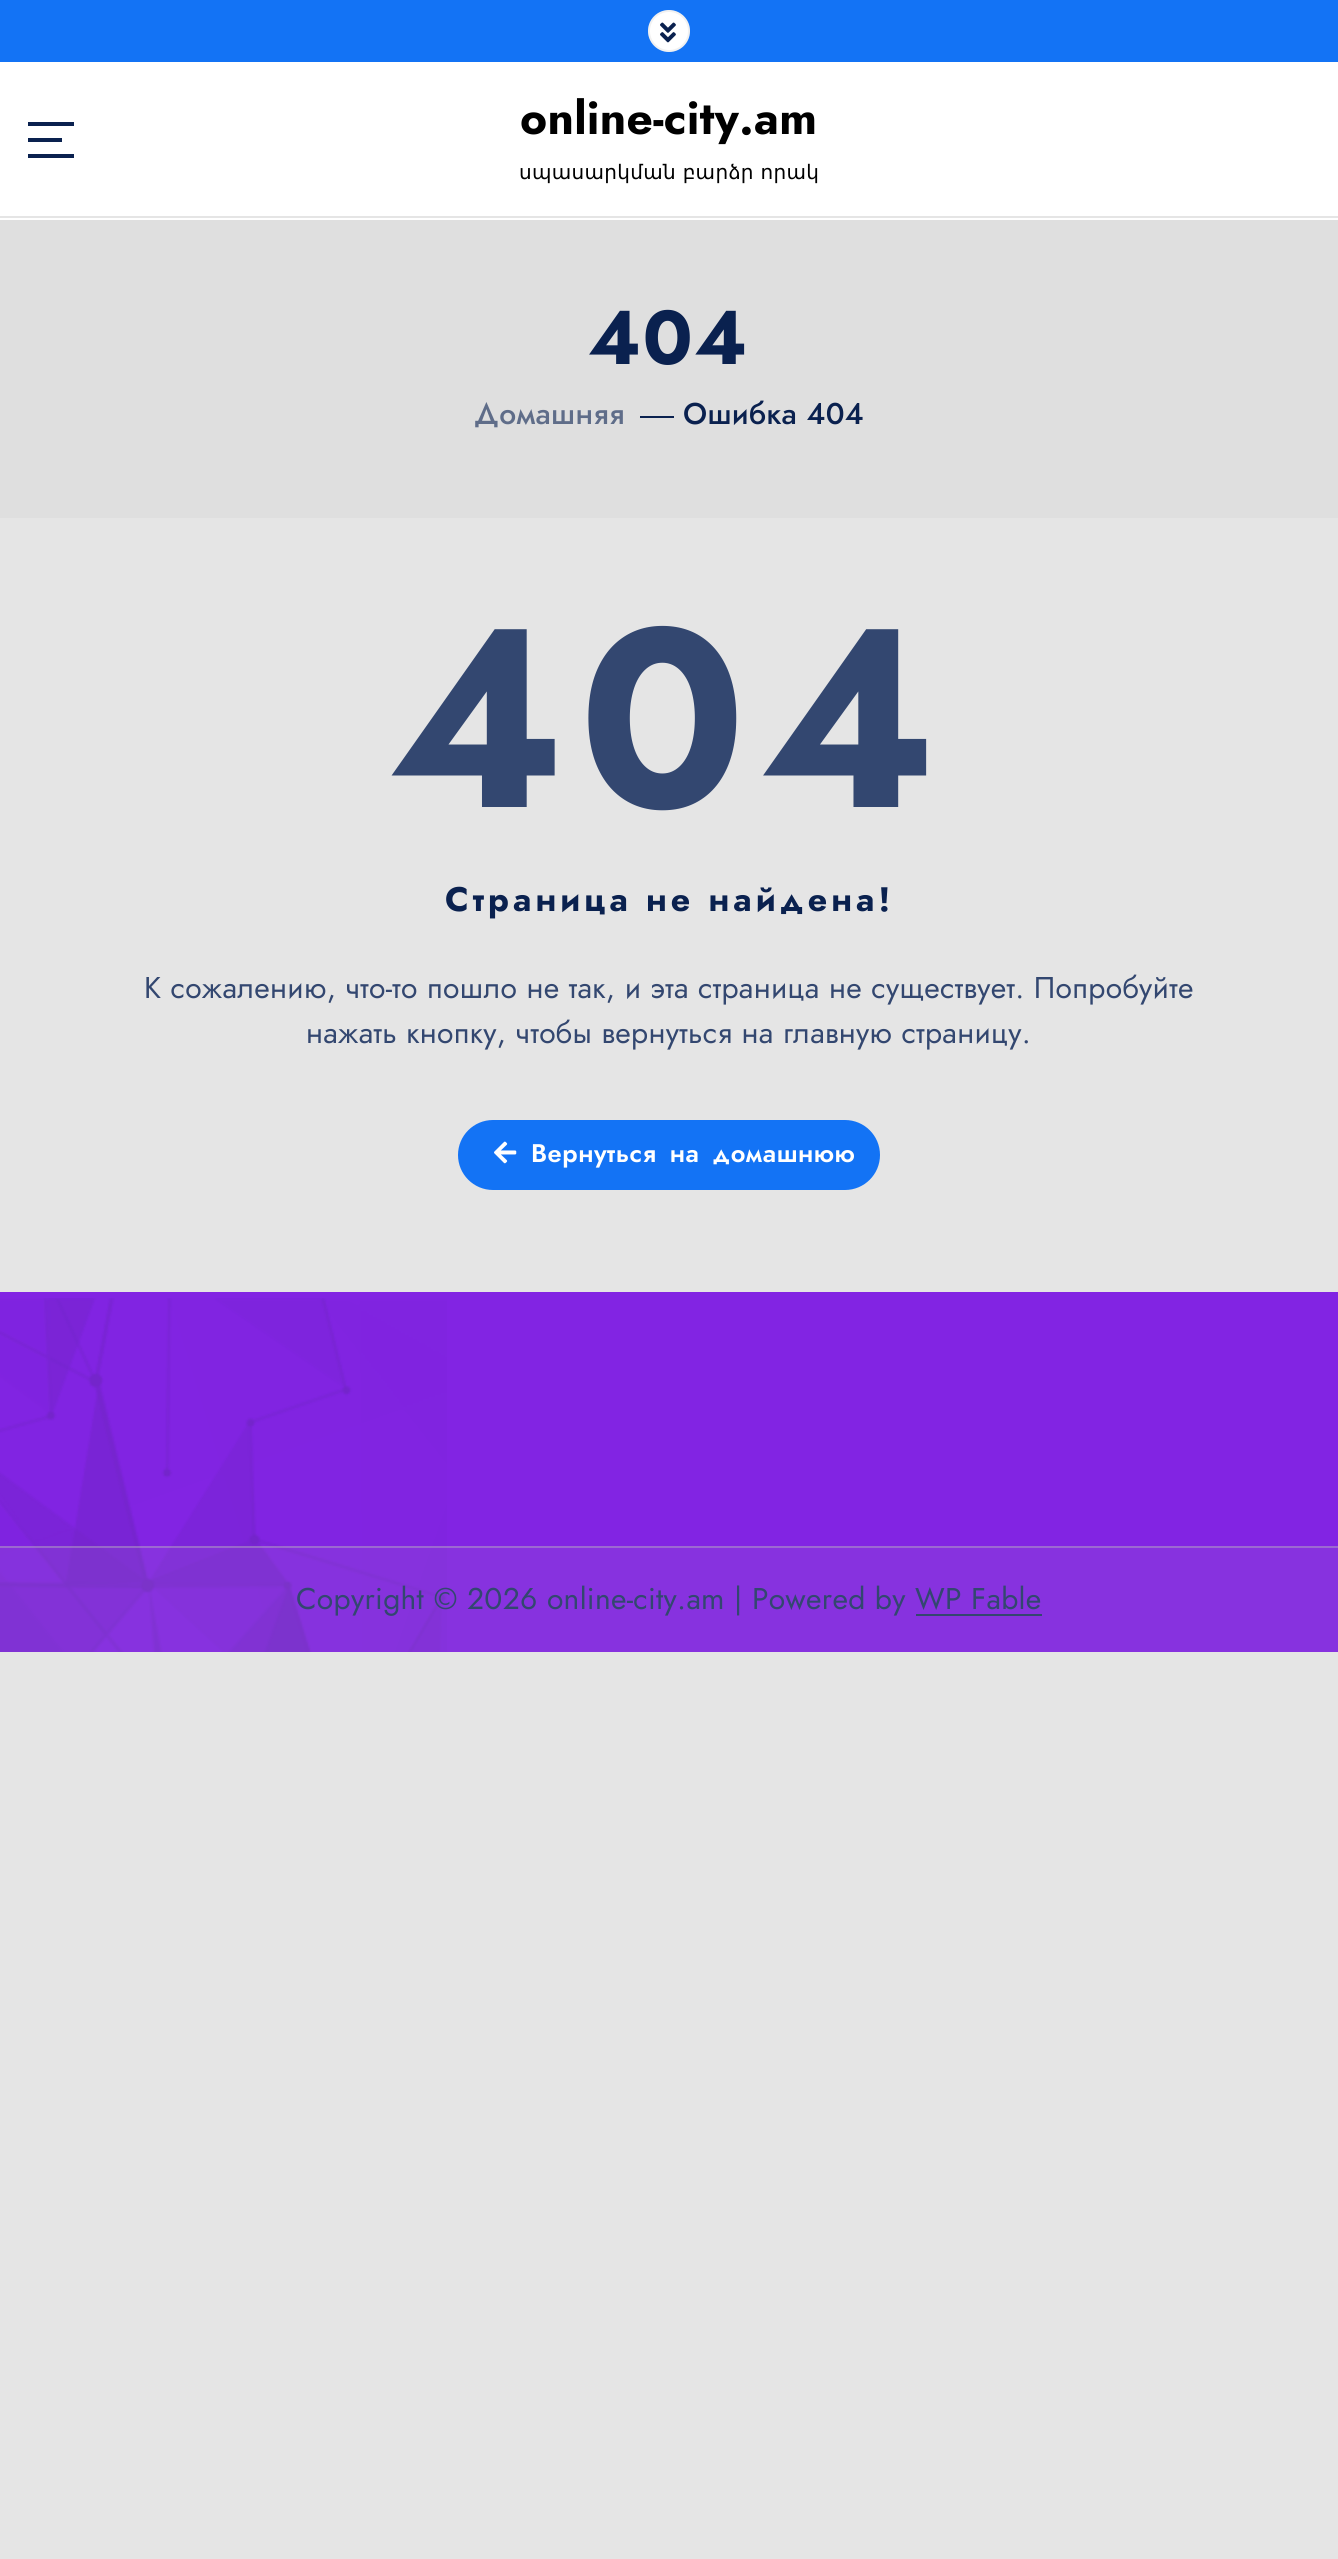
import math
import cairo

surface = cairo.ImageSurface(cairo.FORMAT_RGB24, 1338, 2559)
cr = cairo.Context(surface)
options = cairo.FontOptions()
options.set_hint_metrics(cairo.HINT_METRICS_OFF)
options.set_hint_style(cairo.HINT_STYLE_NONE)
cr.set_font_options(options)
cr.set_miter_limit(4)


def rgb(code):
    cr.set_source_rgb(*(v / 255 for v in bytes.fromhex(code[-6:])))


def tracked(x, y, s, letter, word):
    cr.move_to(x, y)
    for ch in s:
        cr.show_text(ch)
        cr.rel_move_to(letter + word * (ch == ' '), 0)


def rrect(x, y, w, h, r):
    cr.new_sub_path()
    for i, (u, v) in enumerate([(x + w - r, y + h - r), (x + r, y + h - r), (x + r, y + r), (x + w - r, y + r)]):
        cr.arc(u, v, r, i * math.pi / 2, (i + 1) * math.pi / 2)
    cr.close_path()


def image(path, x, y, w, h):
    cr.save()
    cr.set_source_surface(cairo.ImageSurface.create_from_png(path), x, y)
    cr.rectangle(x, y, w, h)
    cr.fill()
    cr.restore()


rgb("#e5e5e5")
cr.paint()
for x, y, w, h, color in [
    (0, 62, 1338, 158, "#ffffff"),
    (0, 216, 1338, 2, "#e5e5e5"),
    (0, 0, 1338, 62, "#1373f5"),
]:
    rgb(color)
    cr.rectangle(x, y, w, h)
    cr.fill()
rgb("#ffffff")
cr.arc(669, 31, 21, 0, 2 * math.pi)
cr.fill()
cr.arc(669, 31, 20, 0, 2 * math.pi)
cr.set_source_rgba(0.741, 0.741, 0.741, 0.2)
cr.stroke()
image("img/1.png", 660, 22, 16, 21)
for x, y, w, h, color in [
    (28, 122, 46, 4, "#0a214f"),
    (28, 138, 34, 4, "#0a214f"),
    (28, 154, 46, 4, "#0a214f"),
    (0, 220, 1338, 298, "#dfdfdf"),
    (640, 416, 34, 2, "#0a214f"),
]:
    rgb(color)
    cr.rectangle(x, y, w, h)
    cr.fill()
rgb("#1373f5")
rrect(459, 1121, 420, 68, 34)
cr.fill_preserve()
cr.stroke()
image("img/2.png", 494, 1141, 23, 23)
rgb("#8224e3")
cr.rectangle(0, 1292, 1338, 360)
cr.fill()
image("img/3.png", 0, 1298, 447, 354)
cr.set_source_rgba(0.741, 0.741, 0.741, 0.1)
cr.rectangle(0, 1546, 1338, 106)
cr.fill()
cr.set_source_rgba(0.741, 0.741, 0.741, 0.4)
cr.rectangle(0, 1546, 1338, 2)
cr.fill()
rgb("#334770")
cr.rectangle(916, 1614, 126, 2)
cr.fill()
cr.select_font_face("Jost", cairo.FONT_SLANT_NORMAL, cairo.FONT_WEIGHT_BOLD)
cr.set_font_size(46)
rgb("#000000")
tracked(520, 134, "online-city.am", 0.3, 0)
cr.select_font_face("DejaVu Sans")
cr.set_font_size(20)
tracked(519, 179, "սպասարկման բարձր որակ", 0.3, 0)
cr.select_font_face("Jost", cairo.FONT_SLANT_NORMAL, cairo.FONT_WEIGHT_BOLD)
cr.set_font_size(76)
rgb("#0a214f")
tracked(588, 364, "404", 1.5, 0)
cr.select_font_face("Jost Medium")
cr.set_font_size(30)
rgb("#5f6d89")
tracked(474, 424, "Домашняя", 0.3, 0)
rgb("#0a214f")
tracked(683, 424, "Ошибка 404", 0.3, 0)
cr.select_font_face("Jost", cairo.FONT_SLANT_NORMAL, cairo.FONT_WEIGHT_BOLD)
cr.set_font_size(254)
rgb("#334770")
tracked(388, 807, "404", 13, 0)
cr.set_font_size(33.9)
rgb("#0a214f")
tracked(445, 911, "Страница не найдена!", 4, 0)
cr.select_font_face("Jost")
cr.set_font_size(30)
rgb("#334770")
tracked(144, 998, "К сожалению, что-то пошло не так, и эта страница не существует. Попробуйте", 0.3, 0)
tracked(306, 1043, "нажать кнопку, чтобы вернуться на главную страницу.", 0.3, 0)
cr.select_font_face("Jost SemiBold")
cr.set_font_size(25.5)
rgb("#ffffff")
tracked(531, 1162, "Вернуться на домашнюю", 0.5, 0)
cr.select_font_face("Jost")
cr.set_font_size(30)
rgb("#334770")
tracked(296, 1609, "Copyright © 2026 online-city.am | Powered by WP Fable", 0.3, 0)
surface.write_to_png("page.png")
